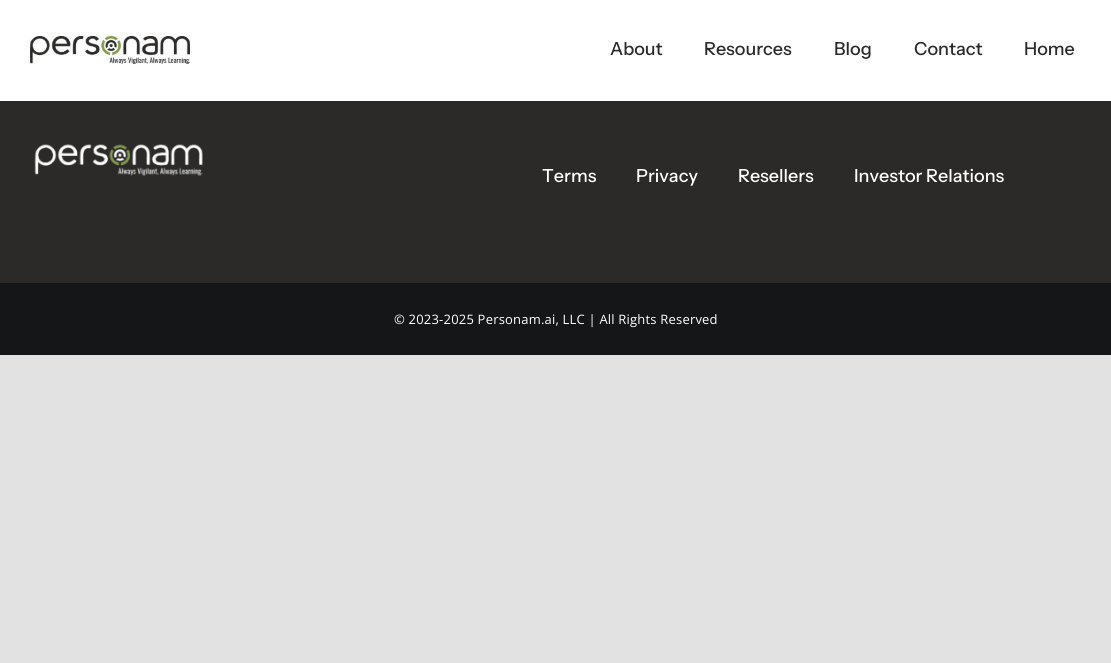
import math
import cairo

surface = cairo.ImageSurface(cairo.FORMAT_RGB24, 1111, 663)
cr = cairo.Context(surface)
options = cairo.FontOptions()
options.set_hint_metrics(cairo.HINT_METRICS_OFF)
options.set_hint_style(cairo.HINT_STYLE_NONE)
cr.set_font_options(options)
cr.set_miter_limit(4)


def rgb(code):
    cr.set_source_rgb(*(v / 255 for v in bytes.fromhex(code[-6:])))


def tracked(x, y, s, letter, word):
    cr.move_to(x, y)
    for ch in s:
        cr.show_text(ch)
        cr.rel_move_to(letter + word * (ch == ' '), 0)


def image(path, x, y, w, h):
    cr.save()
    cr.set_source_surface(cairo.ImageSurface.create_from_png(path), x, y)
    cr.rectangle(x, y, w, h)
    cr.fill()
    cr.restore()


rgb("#e2e2e2")
cr.paint()
rgb("#ffffff")
cr.rectangle(0, 0, 1111, 101)
cr.fill()
image("img/1.png", 30, 36, 160, 28)
rgb("#2b2a29")
cr.rectangle(0, 101, 1111, 182)
cr.fill()
image("img/2.png", 34, 144, 169, 32)
rgb("#141617")
cr.rectangle(0, 283, 1111, 72)
cr.fill()
cr.select_font_face("Instrument Sans Medium")
cr.set_font_size(18)
rgb("#2b2a29")
for x, y, s in [
    (610, 55, "About"),
    (704, 55, "Resources"),
    (834, 55, "Blog"),
    (914, 55, "Contact"),
    (1024, 55, "Home"),
]:
    cr.move_to(x, y)
    cr.show_text(s)
rgb("#ffffff")
for x, y, s in [
    (542, 182, "Terms"),
    (636, 182, "Privacy"),
    (738, 182, "Resellers"),
    (854, 182, "Investor Relations"),
]:
    cr.move_to(x, y)
    cr.show_text(s)
cr.select_font_face("Open Sans")
cr.set_font_size(13)
tracked(394, 324, "© 2023-2025 Personam.ai, LLC | All Rights Reserved", 0.2, 0)
surface.write_to_png("page.png")
